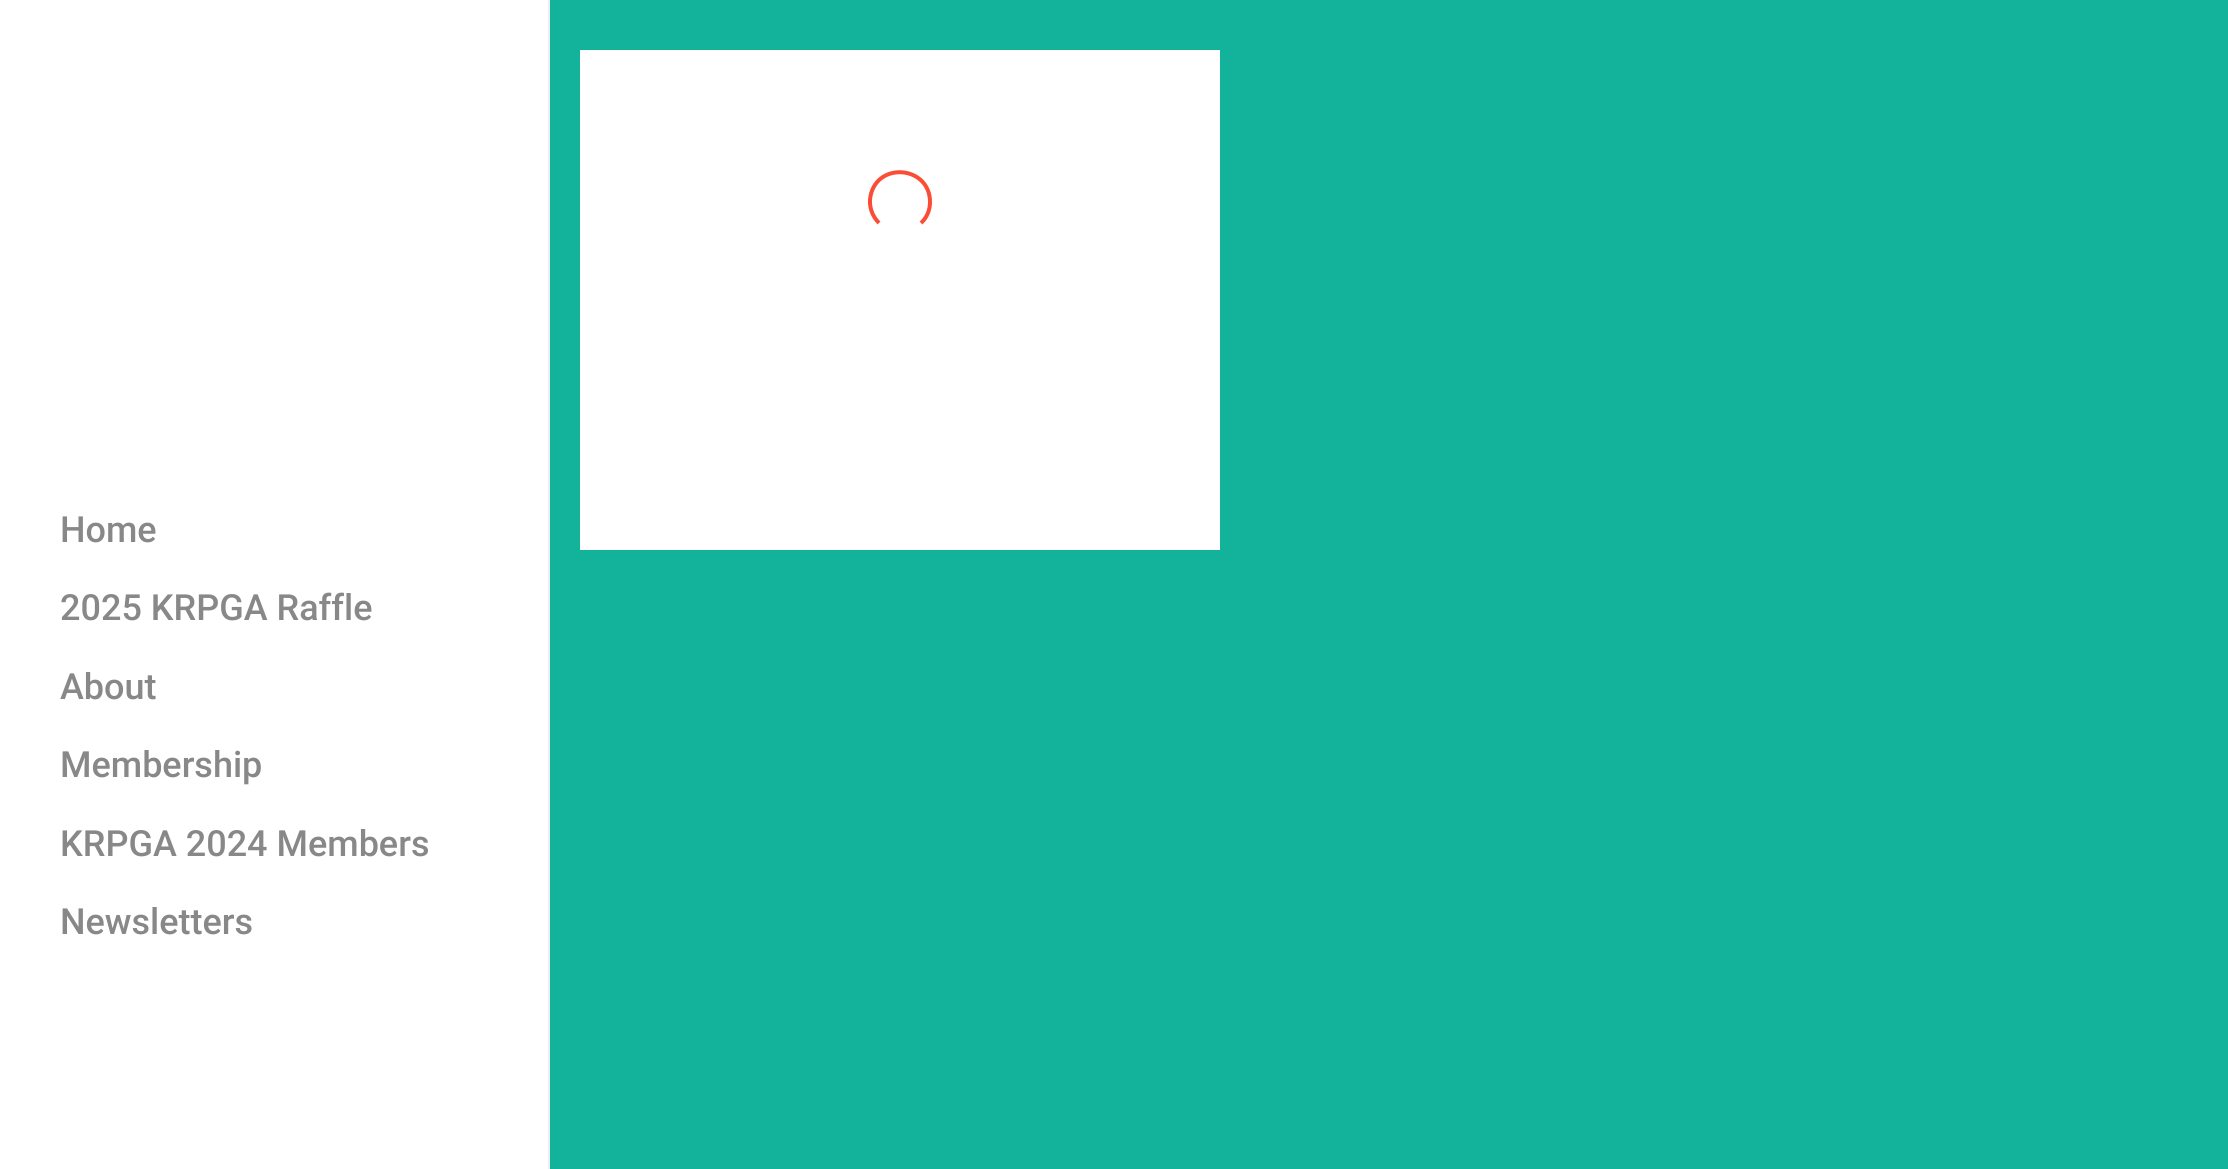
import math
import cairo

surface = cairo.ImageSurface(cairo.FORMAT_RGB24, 2228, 1169)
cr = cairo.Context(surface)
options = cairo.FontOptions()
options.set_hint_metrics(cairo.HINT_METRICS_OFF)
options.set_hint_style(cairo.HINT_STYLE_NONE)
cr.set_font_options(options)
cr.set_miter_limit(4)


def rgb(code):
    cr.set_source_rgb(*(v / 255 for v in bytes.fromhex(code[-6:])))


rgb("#13b39b")
cr.paint()
rgb("#ffffff")
cr.rectangle(580, 50, 640, 500)
cr.fill()
cr.new_path()
cr.move_to(879, 223)
cr.curve_to(872, 216, 868.5, 206, 870.5, 196)
cr.curve_to(877.5, 161, 930, 166, 930, 202)
cr.curve_to(930, 210, 927, 217.5, 921, 223)
rgb("#fb4c35")
cr.set_line_width(4)
cr.stroke()
rgb("#ffffff")
cr.rectangle(0, 0, 548, 1169)
cr.fill()
rgb("#ededed")
cr.rectangle(548, 0, 2, 1169)
cr.fill()
cr.select_font_face("Roboto Medium")
cr.set_font_size(36)
rgb("#888888")
for x, y, s in [
    (60, 542, "Home"),
    (60, 620, "2025 KRPGA Raffle"),
    (60, 699, "About"),
    (60, 777, "Membership"),
    (60, 856, "KRPGA 2024 Members"),
    (60, 934, "Newsletters"),
]:
    cr.move_to(x, y)
    cr.show_text(s)
surface.write_to_png("page.png")
